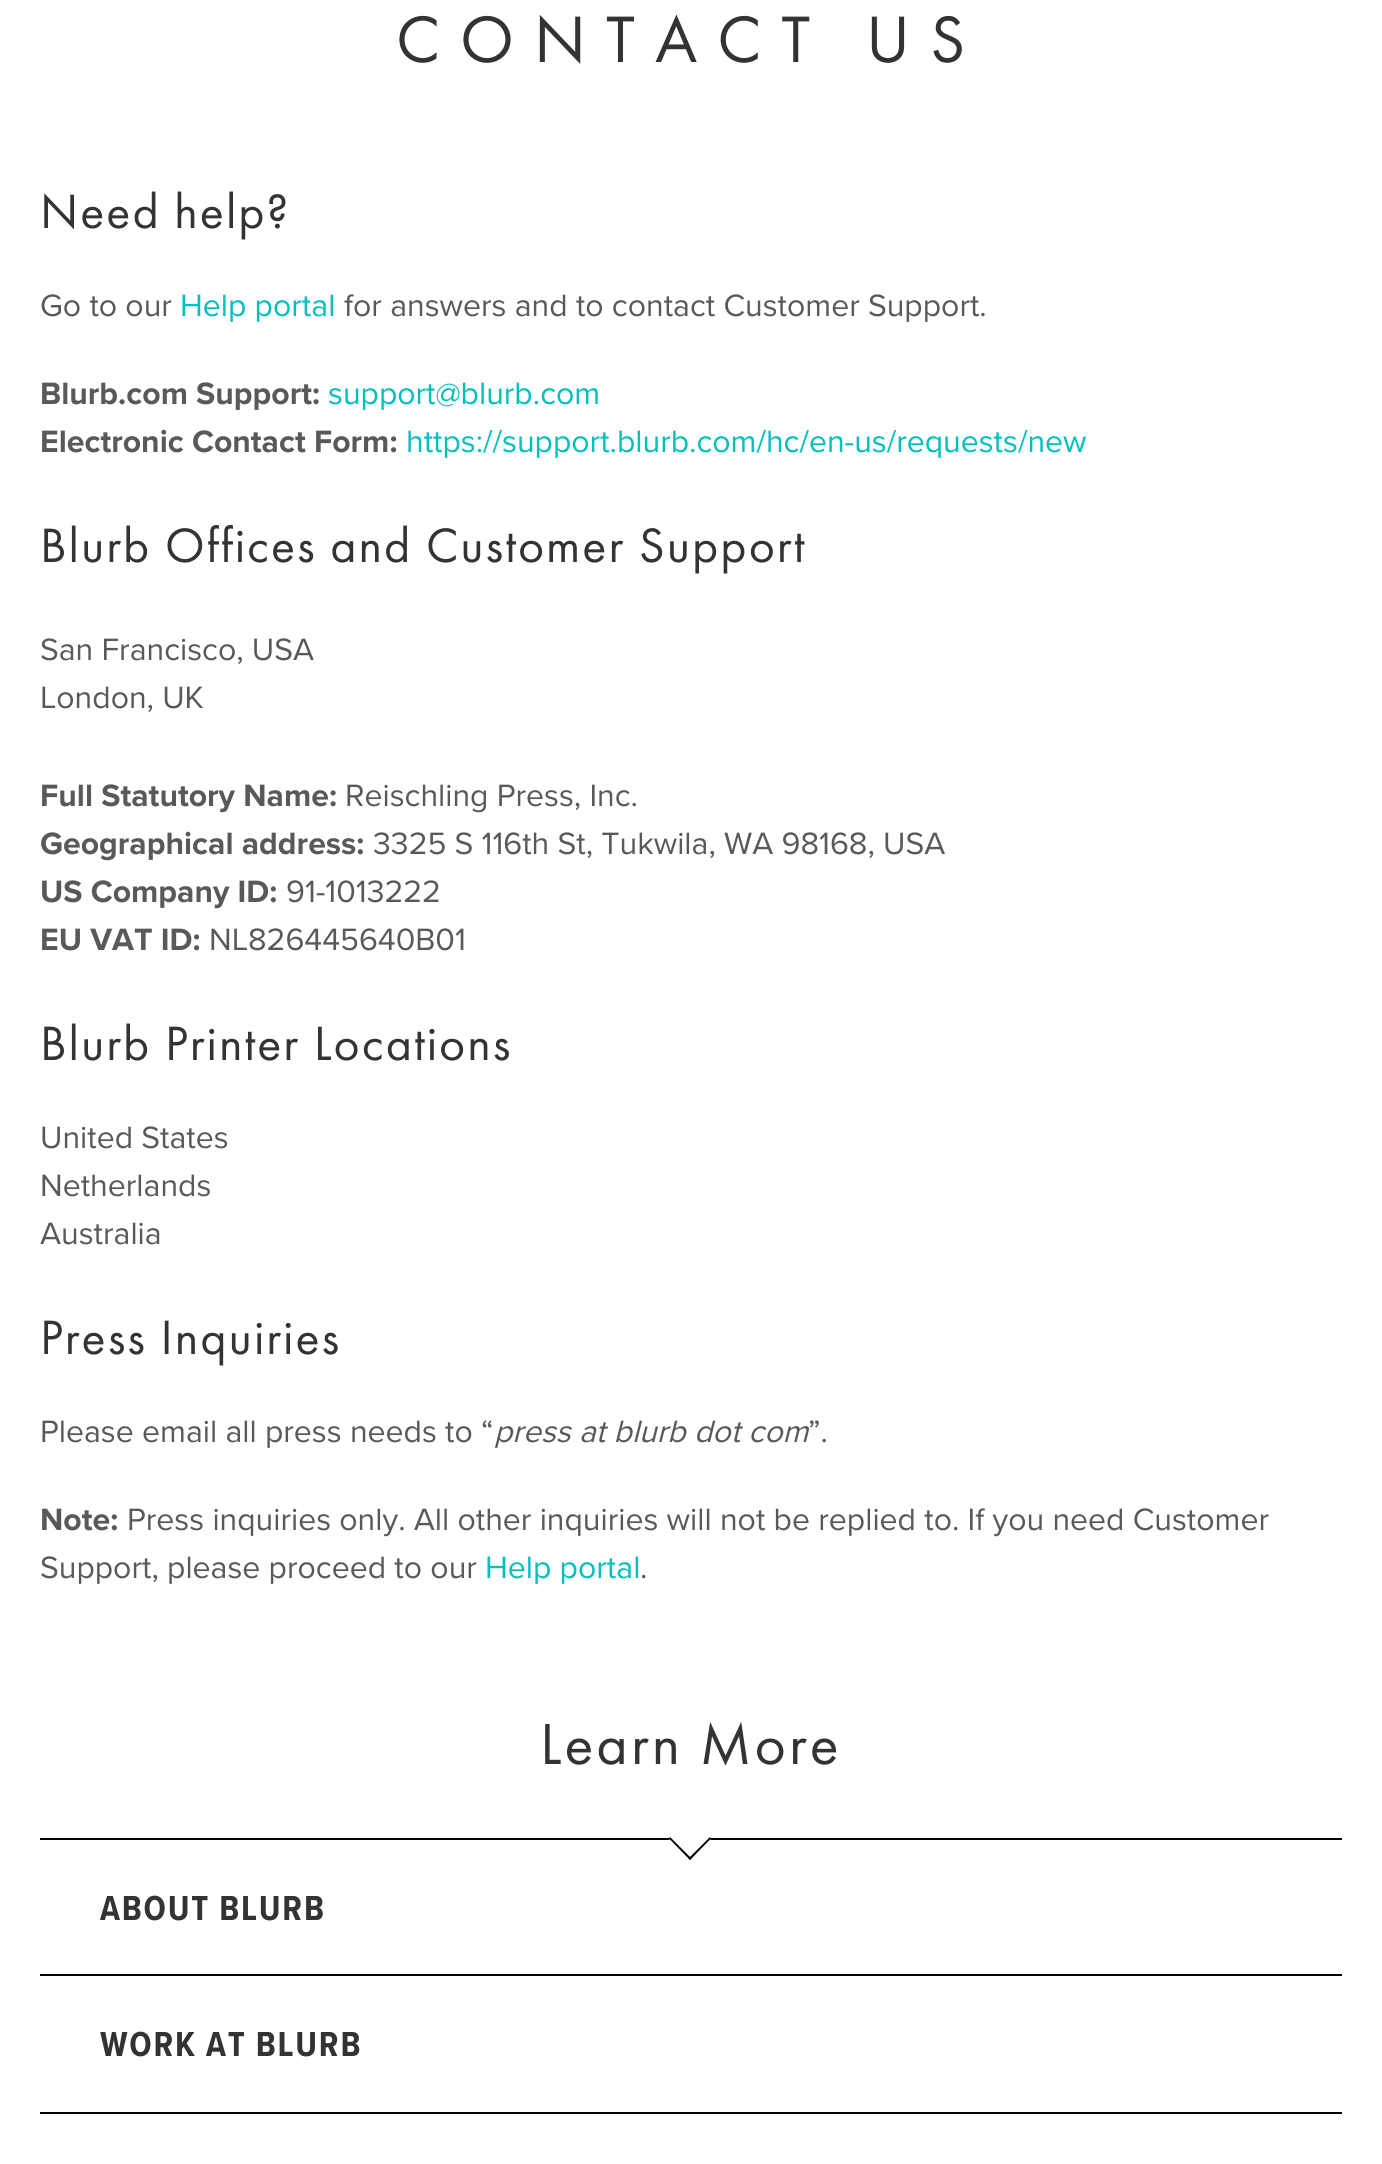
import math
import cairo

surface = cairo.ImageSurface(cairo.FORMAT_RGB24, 1382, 2164)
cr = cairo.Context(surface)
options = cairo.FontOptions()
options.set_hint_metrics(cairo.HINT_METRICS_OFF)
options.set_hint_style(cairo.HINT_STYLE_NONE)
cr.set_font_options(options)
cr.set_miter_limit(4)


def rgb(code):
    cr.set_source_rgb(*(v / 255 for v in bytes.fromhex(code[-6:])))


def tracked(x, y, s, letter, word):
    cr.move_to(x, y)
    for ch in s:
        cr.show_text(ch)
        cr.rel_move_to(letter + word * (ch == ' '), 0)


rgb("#ffffff")
cr.paint()
rgb("#000000")
cr.rectangle(40, 1838, 1302, 2)
cr.fill()
rgb("#ffffff")
cr.new_path()
cr.move_to(690, 1817)
cr.line_to(711, 1839)
cr.line_to(690, 1860)
cr.line_to(669, 1839)
cr.close_path()
cr.fill()
rgb("#000000")
cr.new_path()
cr.move_to(710, 1837)
cr.line_to(711, 1838.5)
cr.line_to(690, 1860)
cr.line_to(688.5, 1858.5)
cr.close_path()
cr.fill()
cr.new_path()
cr.move_to(670, 1837)
cr.line_to(691.5, 1858.5)
cr.line_to(690, 1860)
cr.line_to(669, 1838.5)
cr.close_path()
cr.fill()
cr.rectangle(40, 1974, 1302, 2)
cr.fill()
cr.rectangle(40, 2112, 1302, 2)
cr.fill()
cr.select_font_face("Futura PT")
cr.set_font_size(68)
rgb("#333333")
tracked(396, 62, "CONTACT US", 20, 0)
cr.set_font_size(50)
tracked(40, 228, "Need help?", 2, 0)
cr.select_font_face("Proxima Nova")
cr.set_font_size(32)
rgb("#595959")
cr.move_to(40, 316)
cr.show_text("Go to our")
rgb("#00c0be")
cr.move_to(180, 316)
cr.show_text("Help portal")
rgb("#595959")
cr.move_to(344, 316)
cr.show_text("for answers and to contact Customer Support.")
cr.select_font_face("Proxima Nova", cairo.FONT_SLANT_NORMAL, cairo.FONT_WEIGHT_BOLD)
cr.move_to(40, 404)
cr.show_text("Blurb.com Support:")
cr.select_font_face("Proxima Nova")
rgb("#00c0be")
cr.move_to(328, 404)
cr.show_text("support@blurb.com")
cr.select_font_face("Proxima Nova", cairo.FONT_SLANT_NORMAL, cairo.FONT_WEIGHT_BOLD)
rgb("#595959")
cr.move_to(40, 452)
cr.show_text("Electronic Contact Form:")
cr.select_font_face("Proxima Nova")
rgb("#00c0be")
cr.move_to(406, 452)
cr.show_text("https://support.blurb.com/hc/en-us/requests/new")
cr.select_font_face("Futura PT")
cr.set_font_size(50)
rgb("#333333")
tracked(40, 562, "Blurb Offices and Customer Support", 2, 0)
cr.select_font_face("Proxima Nova")
cr.set_font_size(32)
rgb("#595959")
cr.move_to(40, 660)
cr.show_text("San Francisco, USA")
cr.move_to(40, 708)
cr.show_text("London, UK")
cr.select_font_face("Proxima Nova", cairo.FONT_SLANT_NORMAL, cairo.FONT_WEIGHT_BOLD)
cr.move_to(40, 806)
cr.show_text("Full Statutory Name:")
cr.select_font_face("Proxima Nova")
cr.move_to(345, 806)
cr.show_text("Reischling Press, Inc.")
cr.select_font_face("Proxima Nova", cairo.FONT_SLANT_NORMAL, cairo.FONT_WEIGHT_BOLD)
cr.move_to(40, 854)
cr.show_text("Geographical address:")
cr.select_font_face("Proxima Nova")
cr.move_to(373, 854)
cr.show_text("3325 S 116th St, Tukwila, WA 98168, USA")
cr.select_font_face("Proxima Nova", cairo.FONT_SLANT_NORMAL, cairo.FONT_WEIGHT_BOLD)
cr.move_to(40, 902)
cr.show_text("US Company ID:")
cr.select_font_face("Proxima Nova")
cr.move_to(286, 902)
cr.show_text("91-1013222")
cr.select_font_face("Proxima Nova", cairo.FONT_SLANT_NORMAL, cairo.FONT_WEIGHT_BOLD)
cr.move_to(40, 950)
cr.show_text("EU VAT ID:")
cr.select_font_face("Proxima Nova")
cr.move_to(209, 950)
cr.show_text("NL826445640B01")
cr.select_font_face("Futura PT")
cr.set_font_size(50)
rgb("#333333")
tracked(40, 1060, "Blurb Printer Locations", 2, 0)
cr.select_font_face("Proxima Nova")
cr.set_font_size(32)
rgb("#595959")
for x, y, s in [
    (40, 1148, "United States"),
    (40, 1196, "Netherlands"),
    (40, 1244, "Australia"),
]:
    cr.move_to(x, y)
    cr.show_text(s)
cr.select_font_face("Futura PT")
cr.set_font_size(50)
rgb("#333333")
tracked(40, 1354, "Press Inquiries", 2, 0)
cr.select_font_face("Proxima Nova")
cr.set_font_size(32)
rgb("#595959")
cr.move_to(40, 1442)
cr.show_text("Please email all press needs to “")
cr.select_font_face("Proxima Nova", cairo.FONT_SLANT_ITALIC)
cr.move_to(494, 1442)
cr.show_text("press at blurb dot com")
cr.select_font_face("Proxima Nova")
cr.move_to(808, 1442)
cr.show_text("”.")
cr.select_font_face("Proxima Nova", cairo.FONT_SLANT_NORMAL, cairo.FONT_WEIGHT_BOLD)
cr.move_to(40, 1530)
cr.show_text("Note:")
cr.select_font_face("Proxima Nova")
cr.move_to(127, 1530)
cr.show_text("Press inquiries only. All other inquiries will not be replied to. If you need Customer")
cr.move_to(40, 1578)
cr.show_text("Support, please proceed to our")
rgb("#00c0be")
cr.move_to(485, 1578)
cr.show_text("Help portal")
rgb("#595959")
cr.move_to(640, 1578)
cr.show_text(".")
cr.select_font_face("Futura PT")
cr.set_font_size(60)
rgb("#333333")
tracked(540, 1764, "Learn More", 3, 0)
cr.select_font_face("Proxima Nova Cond", cairo.FONT_SLANT_NORMAL, cairo.FONT_WEIGHT_BOLD)
cr.set_font_size(36)
tracked(100, 1920, "ABOUT BLURB", 1.75, 0)
tracked(100, 2056, "WORK AT BLURB", 1.75, 0)
surface.write_to_png("page.png")
